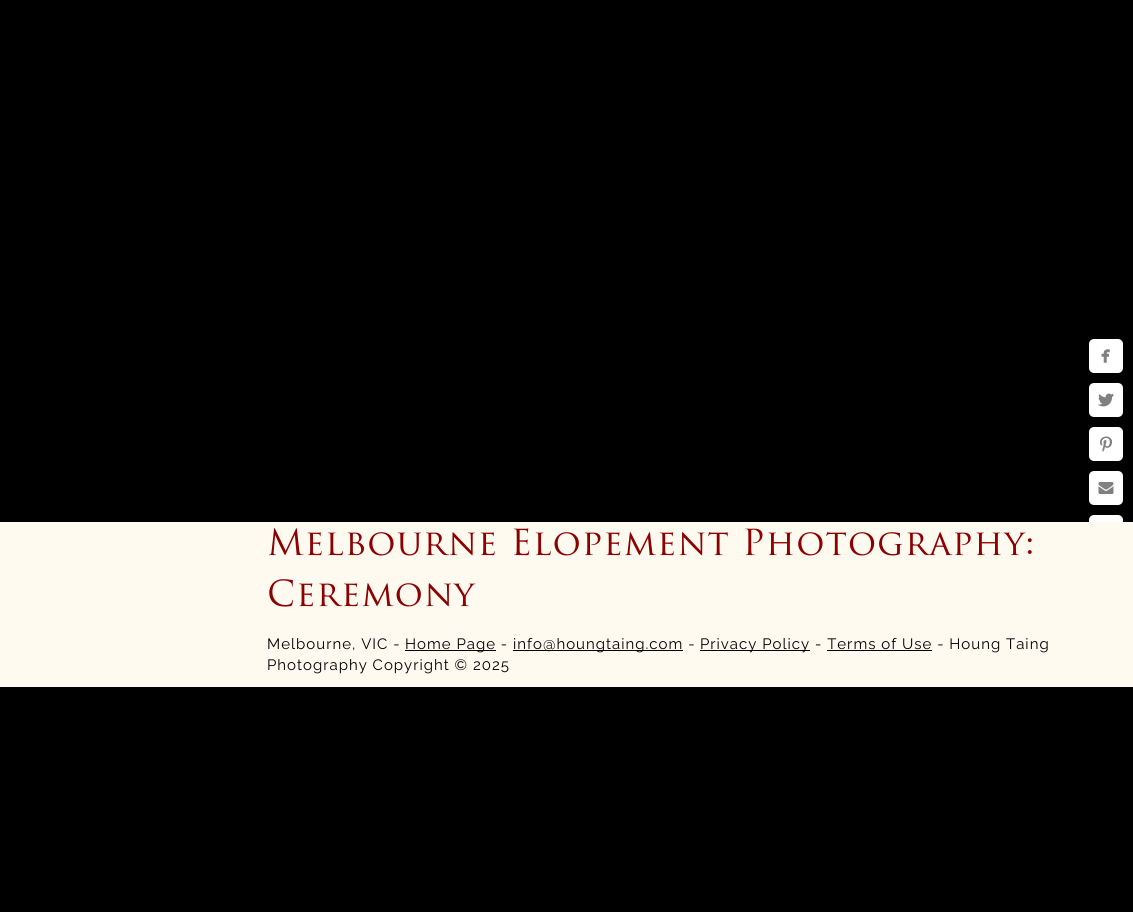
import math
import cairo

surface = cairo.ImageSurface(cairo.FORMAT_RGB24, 1133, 912)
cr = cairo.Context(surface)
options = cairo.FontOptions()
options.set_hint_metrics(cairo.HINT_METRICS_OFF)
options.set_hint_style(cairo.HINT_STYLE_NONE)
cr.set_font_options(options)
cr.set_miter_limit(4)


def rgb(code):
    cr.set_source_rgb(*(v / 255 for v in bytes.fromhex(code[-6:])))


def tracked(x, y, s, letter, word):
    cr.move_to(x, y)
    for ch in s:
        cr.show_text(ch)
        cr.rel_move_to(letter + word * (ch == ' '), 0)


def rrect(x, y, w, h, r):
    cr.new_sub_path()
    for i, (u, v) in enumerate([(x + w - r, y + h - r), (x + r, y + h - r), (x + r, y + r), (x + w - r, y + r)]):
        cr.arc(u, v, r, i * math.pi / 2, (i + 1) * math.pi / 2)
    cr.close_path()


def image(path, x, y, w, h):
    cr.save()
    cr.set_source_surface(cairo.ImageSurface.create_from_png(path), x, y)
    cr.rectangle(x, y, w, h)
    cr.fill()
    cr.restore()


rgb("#000000")
cr.paint()
rgb("#ffffff")
rrect(1089, 339, 34, 34, 5)
cr.fill()
image("img/1.png", 1101, 349, 9, 14)
rrect(1089, 383, 34, 34, 5)
cr.fill()
image("img/2.png", 1098, 393, 16, 14)
rrect(1089, 427, 34, 34, 5)
cr.fill()
image("img/3.png", 1100, 436, 12, 16)
rrect(1089, 471, 34, 34, 5)
cr.fill()
image("img/4.png", 1098, 482, 16, 12)
rrect(1089, 515, 34, 34, 5)
cr.fill()
rgb("#fffaf0")
cr.rectangle(0, 522, 1133, 165)
cr.fill()
image("img/5.png", 268, 528, 764, 28)
image("img/6.png", 269, 579, 207, 28)
for x, y, w, h, color in [
    (405, 650, 91, 1, "#000000"),
    (513, 650, 170, 1, "#000000"),
    (700, 650, 110, 1, "#000000"),
    (827, 650, 105, 1, "#000000"),
]:
    rgb(color)
    cr.rectangle(x, y, w, h)
    cr.fill()
cr.select_font_face("Raleway Thin")
cr.set_font_size(15)
for x, y, s in [
    (267, 649, "Melbourne, VIC -"),
    (405, 649, "Home Page -"),
    (513, 649, "info@houngtaing.com -"),
    (700, 649, "Privacy Policy - Terms of Use - Houng Taing"),
    (267, 670, "Photography Copyright © 2025"),
]:
    tracked(x, y, s, 1, 0)
surface.write_to_png("page.png")
